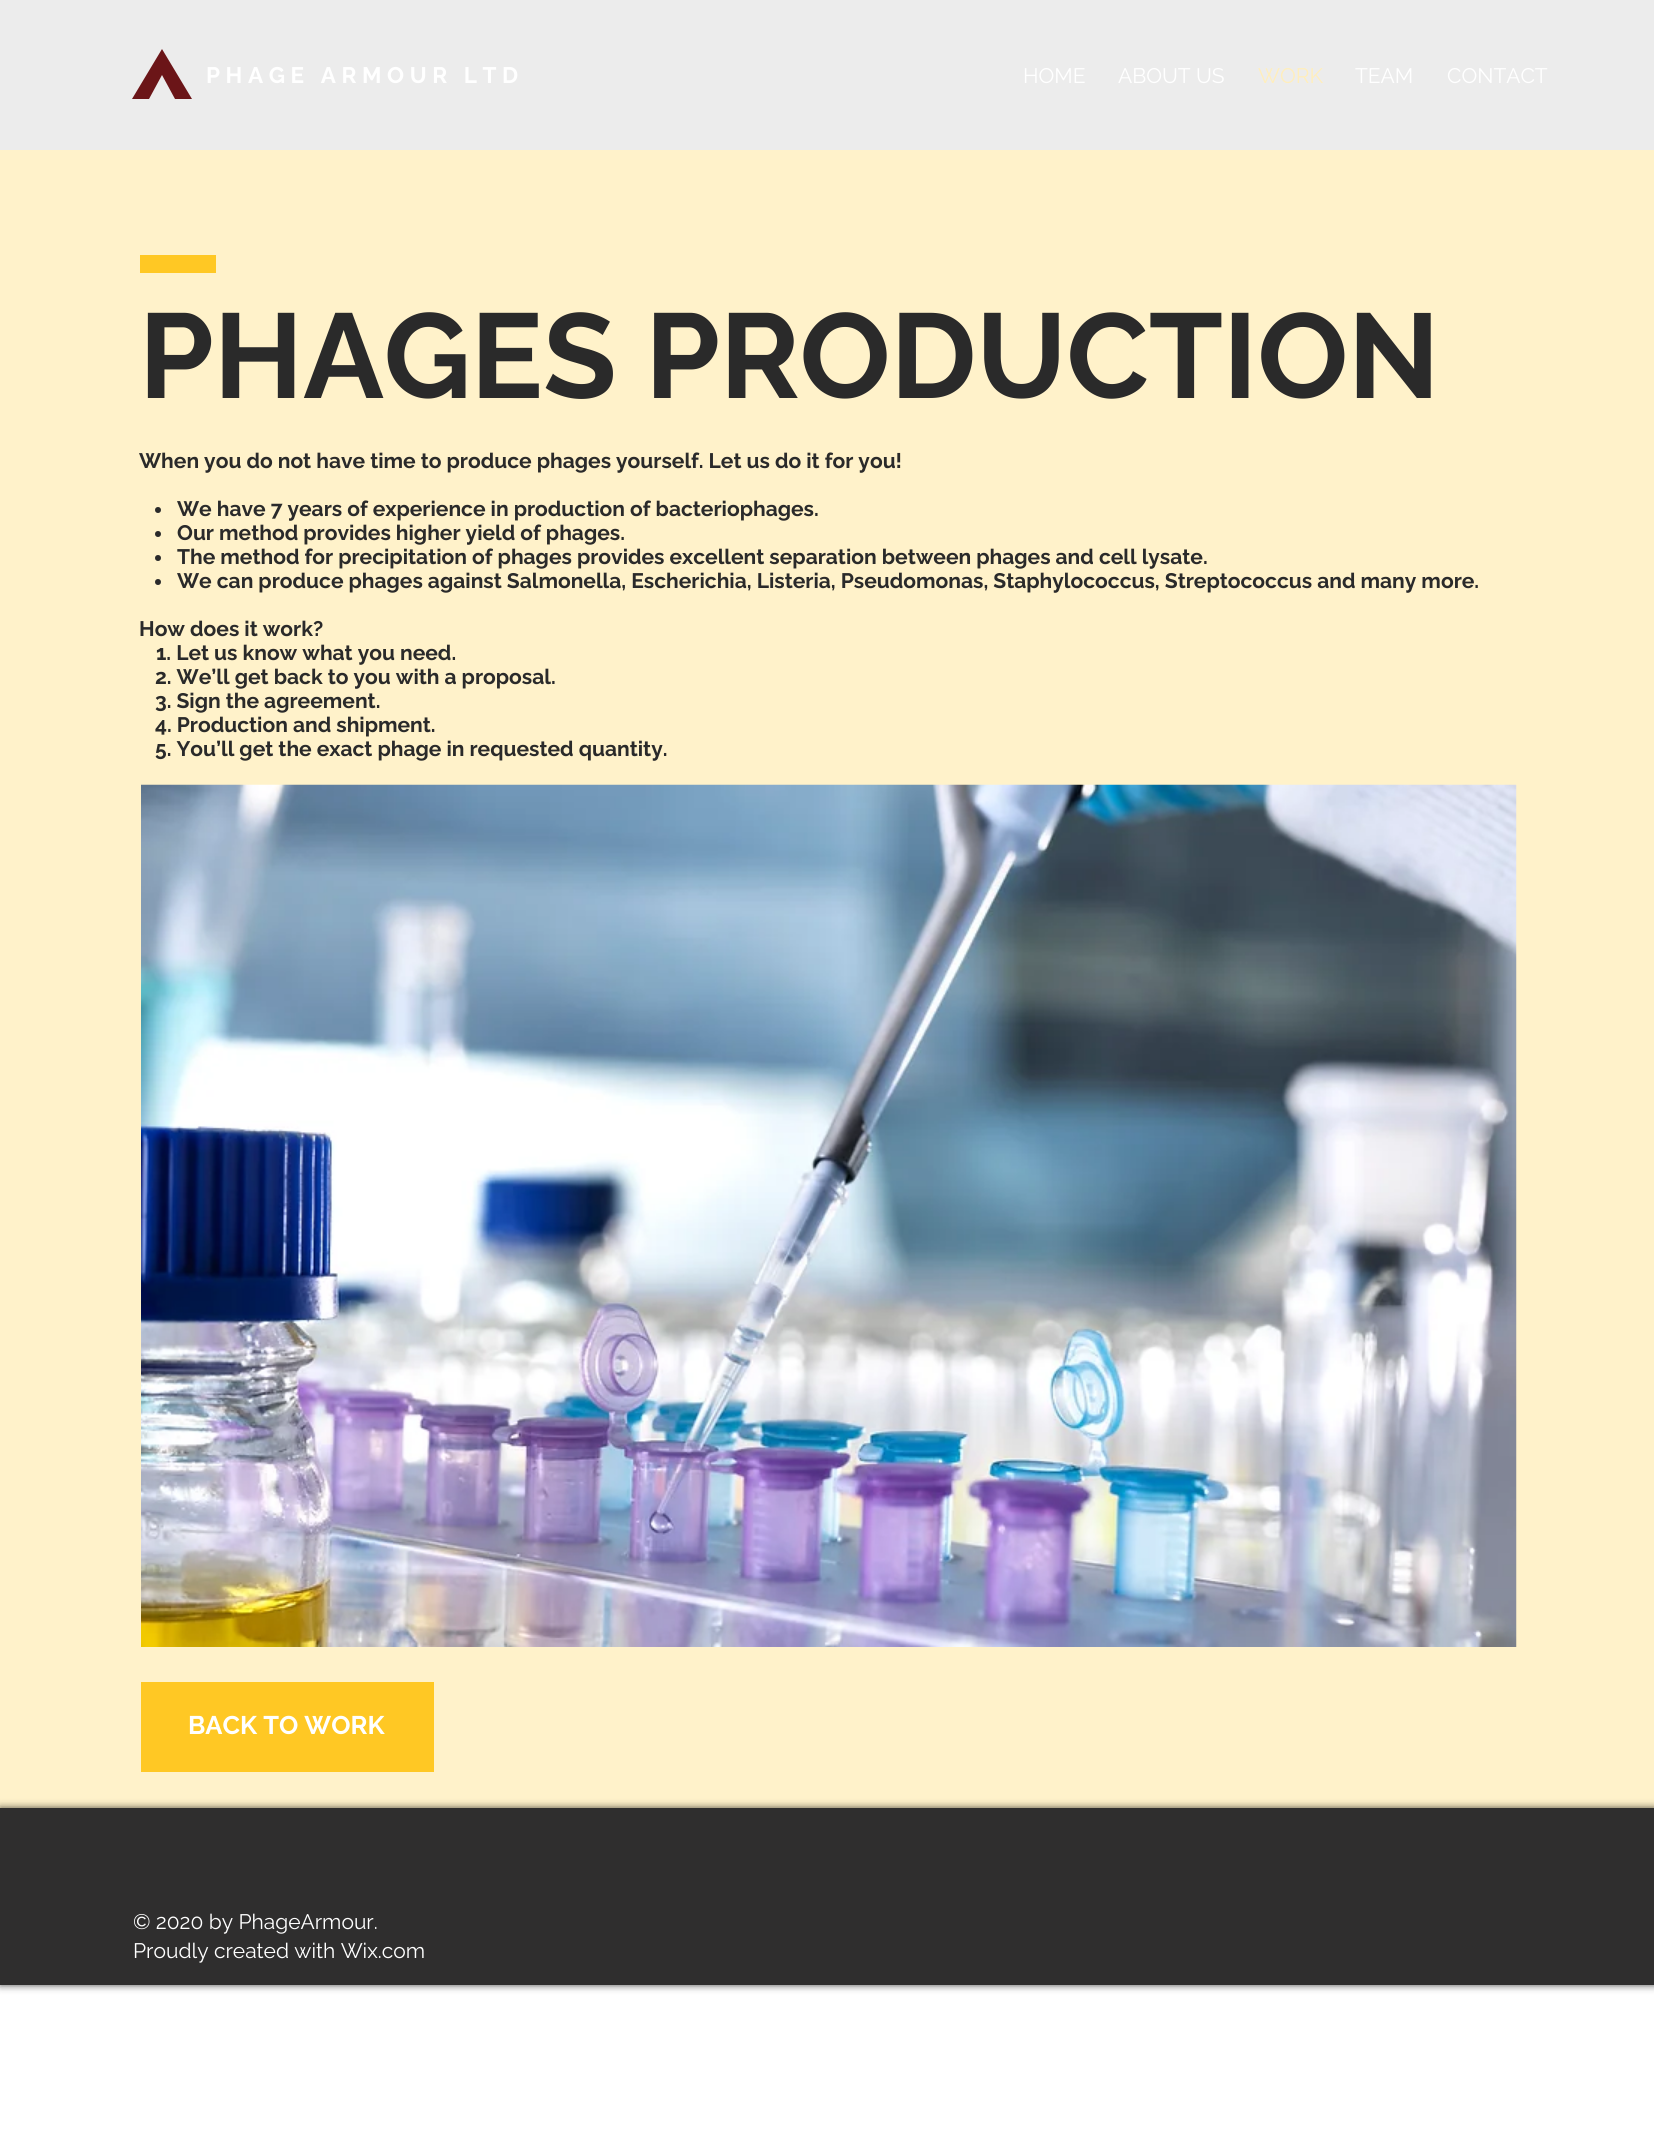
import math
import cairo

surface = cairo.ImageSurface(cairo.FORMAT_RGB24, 1654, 2132)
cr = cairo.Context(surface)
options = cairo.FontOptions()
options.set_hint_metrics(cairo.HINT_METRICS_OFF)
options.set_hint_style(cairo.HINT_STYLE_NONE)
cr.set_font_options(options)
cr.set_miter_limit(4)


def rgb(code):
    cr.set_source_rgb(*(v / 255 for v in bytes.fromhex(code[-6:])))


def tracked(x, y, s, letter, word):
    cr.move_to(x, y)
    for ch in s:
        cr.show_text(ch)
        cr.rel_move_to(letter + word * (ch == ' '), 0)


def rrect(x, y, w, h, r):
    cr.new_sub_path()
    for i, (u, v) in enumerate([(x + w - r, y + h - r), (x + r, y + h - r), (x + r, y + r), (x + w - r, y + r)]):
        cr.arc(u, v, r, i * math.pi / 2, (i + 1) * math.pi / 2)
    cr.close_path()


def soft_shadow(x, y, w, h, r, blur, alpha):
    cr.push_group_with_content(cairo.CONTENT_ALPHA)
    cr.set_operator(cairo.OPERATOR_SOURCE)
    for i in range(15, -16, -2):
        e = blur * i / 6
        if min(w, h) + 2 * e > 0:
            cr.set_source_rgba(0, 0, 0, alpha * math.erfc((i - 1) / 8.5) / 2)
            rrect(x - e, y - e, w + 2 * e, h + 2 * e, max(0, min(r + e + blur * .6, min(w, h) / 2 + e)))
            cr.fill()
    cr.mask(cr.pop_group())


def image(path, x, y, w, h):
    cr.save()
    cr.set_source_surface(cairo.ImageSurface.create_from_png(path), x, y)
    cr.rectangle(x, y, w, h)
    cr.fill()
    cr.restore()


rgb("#ffffff")
cr.paint()
rgb("#ececec")
cr.rectangle(0, 0, 1654, 150)
cr.fill()
rgb("#6b1518")
cr.new_path()
cr.move_to(162, 49)
cr.line_to(192, 99)
cr.line_to(175, 99)
cr.line_to(162, 75)
cr.line_to(149, 99)
cr.line_to(132, 99)
cr.close_path()
cr.fill()
rgb("#fff2ca")
cr.rectangle(0, 150, 1654, 1658)
cr.fill()
rgb("#ffc824")
cr.rectangle(140, 255, 76, 18)
cr.fill()
rgb("#2a2a2a")
cr.arc(158, 510, 3, 0, 2 * math.pi)
cr.fill()
cr.arc(158, 534, 3, 0, 2 * math.pi)
cr.fill()
cr.arc(158, 558, 3, 0, 2 * math.pi)
cr.fill()
cr.arc(158, 582, 3, 0, 2 * math.pi)
cr.fill()
image("img/1.png", 141, 784, 1376, 863)
rgb("#ffc824")
cr.rectangle(141, 1682, 293, 90)
cr.fill()
rgb("#000000")
soft_shadow(0, 1808, 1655, 177, 0, 4, 0.7)
rgb("#2f2e2e")
cr.rectangle(0, 1808, 1654, 177)
cr.fill()
cr.select_font_face("Raleway", cairo.FONT_SLANT_NORMAL, cairo.FONT_WEIGHT_BOLD)
cr.set_font_size(22.5)
rgb("#ffffff")
tracked(206, 83, "PHAGE ARMOUR LTD", 5.6, 0)
cr.select_font_face("Raleway")
cr.set_font_size(21)
cr.move_to(1023, 83)
cr.show_text("HOME")
cr.move_to(1118, 83)
cr.show_text("ABOUT US")
rgb("#ffeebc")
cr.move_to(1258, 83)
cr.show_text("WORK")
rgb("#ffffff")
cr.move_to(1355, 83)
cr.show_text("TEAM")
cr.move_to(1447, 83)
cr.show_text("CONTACT")
cr.select_font_face("Raleway", cairo.FONT_SLANT_NORMAL, cairo.FONT_WEIGHT_BOLD)
cr.set_font_size(120)
rgb("#2a2a2a")
cr.move_to(139, 398)
cr.show_text("PHAGES PRODUCTION")
cr.set_font_size(21)
for x, y, s in [
    (139, 468, "When you do not have time to produce phages yourself. Let us do it for you!"),
    (177, 516, "We have 7 years of experience in production of bacteriophages."),
    (177, 540, "Our method provides higher yield of phages."),
    (177, 564, "The method for precipitation of phages provides excellent separation between phages and cell lysate."),
    (177, 588, "We can produce phages against Salmonella, Escherichia, Listeria, Pseudomonas, Staphylococcus, Streptococcus and many more."),
    (139, 636, "How does it work?"),
    (156, 660, "1. Let us know what you need."),
    (155, 684, "2. We’ll get back to you with a proposal."),
    (155, 708, "3. Sign the agreement."),
    (155, 732, "4. Production and shipment."),
    (155, 756, "5. You’ll get the exact phage in requested quantity."),
]:
    cr.move_to(x, y)
    cr.show_text(s)
cr.set_font_size(25.5)
rgb("#ffffff")
cr.move_to(188, 1734)
cr.show_text("BACK TO WORK")
cr.select_font_face("Raleway")
cr.set_font_size(21)
cr.move_to(133, 1929)
cr.show_text("© 2020 by PhageArmour.")
cr.move_to(133, 1958)
cr.show_text("Proudly created with Wix.com")
surface.write_to_png("page.png")
